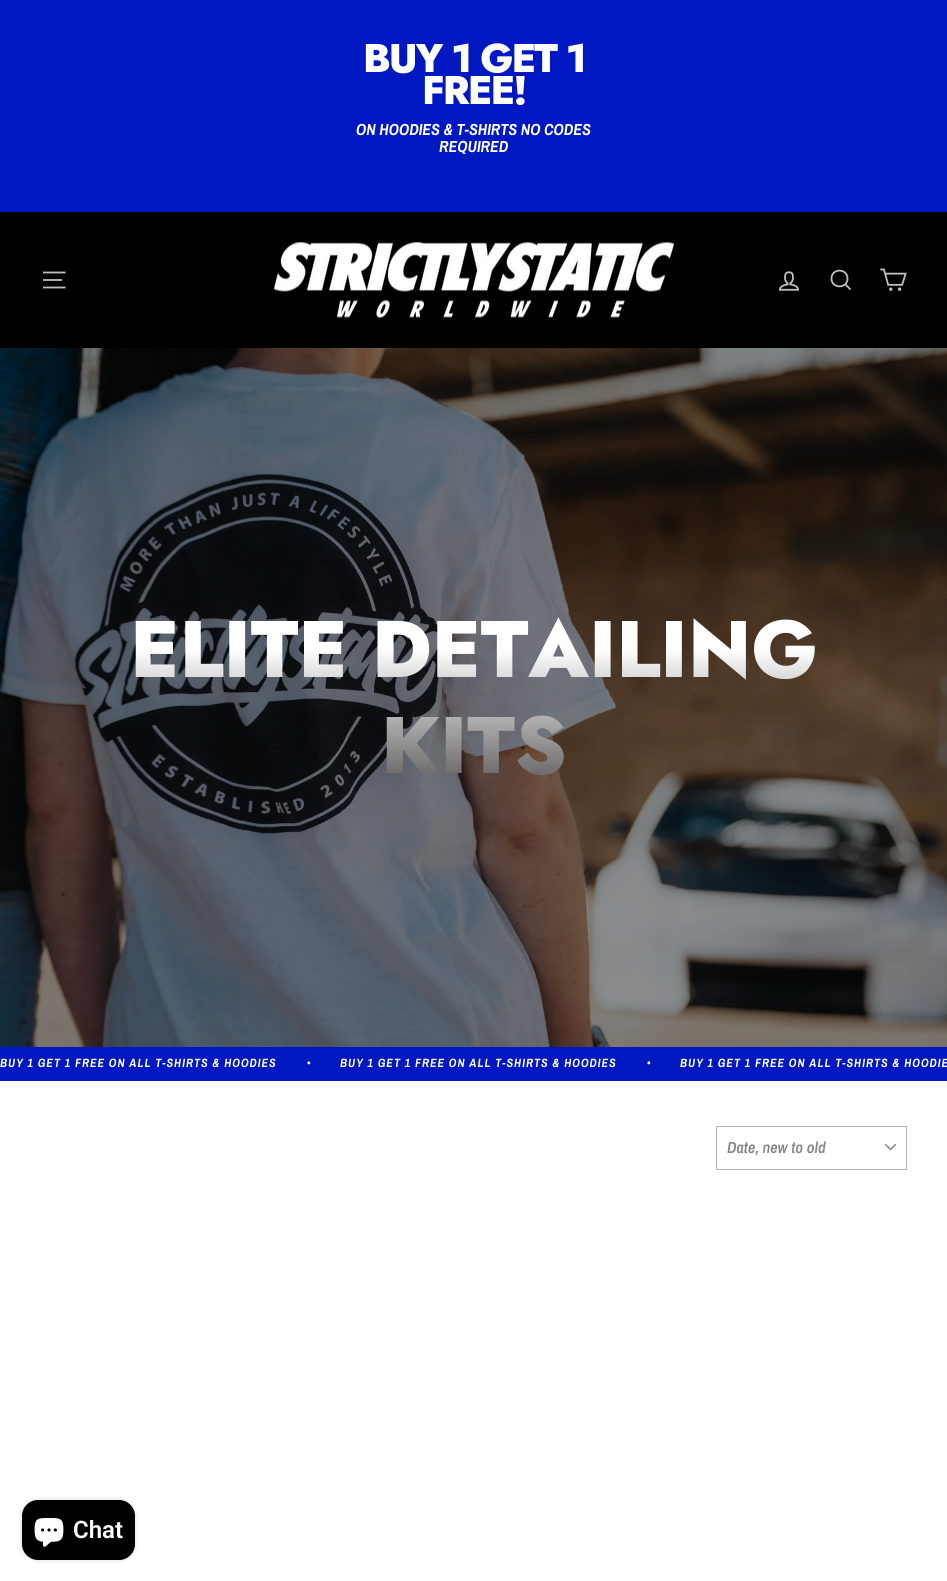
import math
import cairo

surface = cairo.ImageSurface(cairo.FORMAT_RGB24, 947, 1581)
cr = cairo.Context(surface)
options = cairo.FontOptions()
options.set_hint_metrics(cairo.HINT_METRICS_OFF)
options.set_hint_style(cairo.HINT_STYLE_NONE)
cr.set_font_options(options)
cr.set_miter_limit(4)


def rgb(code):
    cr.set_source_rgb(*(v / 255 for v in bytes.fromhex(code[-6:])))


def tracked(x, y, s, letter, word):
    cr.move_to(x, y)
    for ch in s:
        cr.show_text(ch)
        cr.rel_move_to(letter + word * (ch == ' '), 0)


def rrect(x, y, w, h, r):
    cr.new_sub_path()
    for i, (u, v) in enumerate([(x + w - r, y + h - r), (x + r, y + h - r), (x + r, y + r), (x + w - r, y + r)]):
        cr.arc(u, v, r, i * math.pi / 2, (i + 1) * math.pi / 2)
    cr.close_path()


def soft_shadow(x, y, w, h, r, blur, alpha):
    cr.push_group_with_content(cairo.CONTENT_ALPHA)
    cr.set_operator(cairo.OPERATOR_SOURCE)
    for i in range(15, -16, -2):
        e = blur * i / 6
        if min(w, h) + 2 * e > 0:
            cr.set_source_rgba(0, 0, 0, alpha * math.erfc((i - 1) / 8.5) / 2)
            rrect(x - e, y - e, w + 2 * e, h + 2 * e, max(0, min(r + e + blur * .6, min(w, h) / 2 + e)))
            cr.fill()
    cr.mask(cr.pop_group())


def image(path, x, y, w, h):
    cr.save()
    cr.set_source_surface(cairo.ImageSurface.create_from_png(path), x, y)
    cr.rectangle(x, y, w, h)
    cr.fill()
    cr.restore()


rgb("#ffffff")
cr.paint()
rgb("#0018c1")
cr.rectangle(0, 0, 947, 212)
cr.fill()
rgb("#000000")
cr.rectangle(0, 212, 947, 136)
cr.fill()
cr.new_path()
cr.move_to(43, 272.5)
cr.line_to(65.5, 272.5)
cr.move_to(43, 280)
cr.line_to(62, 280)
cr.move_to(43, 287.5)
cr.line_to(65.5, 287.5)
rgb("#bfbfbf")
cr.set_line_width(1.8)
cr.stroke()
image("img/1.png", 274, 242, 400, 76)
image("img/2.png", 778, 271, 22, 20)
cr.new_path()
cr.move_to(847.5, 278.5)
cr.curve_to(847.5, 289, 831.5, 289, 831.5, 278.5)
cr.curve_to(831.5, 268, 847.5, 268, 847.5, 278.5)
cr.close_path()
cr.move_to(850.5, 289.5)
cr.line_to(845.5, 284.5)
cr.stroke()
image("img/3.png", 880, 268, 27, 23)
image("img/4.png", 0, 348, 947, 699)
rgb("#0018c1")
cr.rectangle(0, 1047, 947, 34)
cr.fill()
image("img/5.png", 885, 1144, 11, 7)
cr.rectangle(716.5, 1126.5, 190, 43)
rgb("#b4b4b4")
cr.set_line_width(1)
cr.stroke()
rgb("#000000")
soft_shadow(22, 1500, 113, 60, 16, 2.5, 0.15)
rgb("#000000")
rrect(22, 1500, 113, 60, 16)
cr.fill()
image("img/6.png", 34, 1518, 30, 29)
cr.select_font_face("Jost ExtraBold")
cr.set_font_size(40)
rgb("#ffffff")
tracked(363, 72, "BUY 1 GET 1", -2, 0)
tracked(422, 104, "FREE!", -2, 0)
cr.select_font_face("Archivo Narrow", cairo.FONT_SLANT_ITALIC, cairo.FONT_WEIGHT_BOLD)
cr.set_font_size(16)
cr.move_to(356, 135)
cr.show_text("ON HOODIES & T-SHIRTS NO CODES")
cr.move_to(439, 152)
cr.show_text("REQUIRED")
cr.select_font_face("Jost ExtraBold")
cr.set_font_size(80)
gradient = cairo.LinearGradient(474, 601, 474, 793)
gradient.add_color_stop_rgba(0, 1, 1, 1, 1)
gradient.add_color_stop_rgba(0.25, 1, 1, 1, 1)
gradient.add_color_stop_rgba(1, 0.298, 0.282, 0.278, 1)
cr.set_source(gradient)
cr.move_to(130, 677)
cr.show_text("ELITE DETAILING")
gradient = cairo.LinearGradient(474, 601, 474, 793)
gradient.add_color_stop_rgba(0, 1, 1, 1, 1)
gradient.add_color_stop_rgba(0.25, 1, 1, 1, 1)
gradient.add_color_stop_rgba(1, 0.357, 0.341, 0.349, 1)
cr.set_source(gradient)
cr.move_to(381, 773)
cr.show_text("KITS")
cr.select_font_face("Archivo Narrow", cairo.FONT_SLANT_ITALIC, cairo.FONT_WEIGHT_BOLD)
cr.set_font_size(12)
rgb("#ffffff")
tracked(0, 1067, "BUY 1 GET 1 FREE ON ALL T-SHIRTS & HOODIES", 1, 0)
cr.move_to(307, 1067)
cr.show_text("•")
tracked(340, 1067, "BUY 1 GET 1 FREE ON ALL T-SHIRTS & HOODIES", 1, 0)
cr.move_to(647, 1067)
cr.show_text("•")
tracked(680, 1067, "BUY 1 GET 1 FREE ON ALL T-SHIRTS & HOODIE", 1, 0)
cr.select_font_face("Archivo Narrow SemiBold", cairo.FONT_SLANT_ITALIC)
cr.set_font_size(16)
rgb("#868686")
cr.move_to(727, 1153)
cr.show_text("Date, new to old")
cr.select_font_face("Roboto SemiBold")
cr.set_font_size(24)
rgb("#ffffff")
cr.move_to(73, 1538)
cr.show_text("Chat")
surface.write_to_png("page.png")
